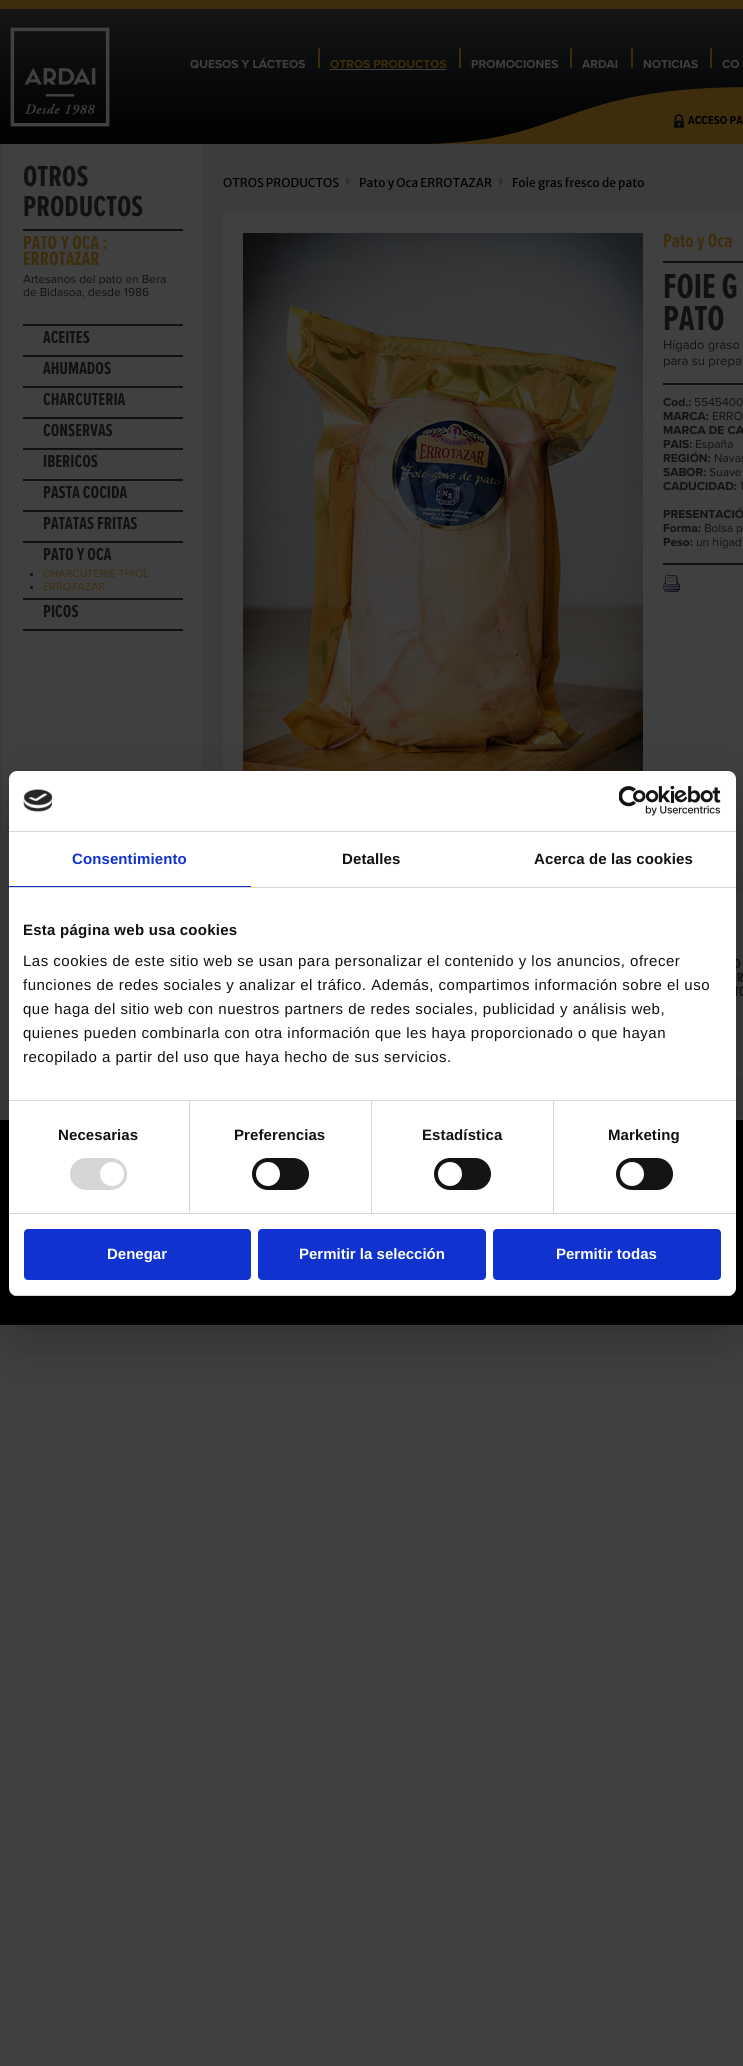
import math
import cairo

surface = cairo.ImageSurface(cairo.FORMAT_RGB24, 743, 2066)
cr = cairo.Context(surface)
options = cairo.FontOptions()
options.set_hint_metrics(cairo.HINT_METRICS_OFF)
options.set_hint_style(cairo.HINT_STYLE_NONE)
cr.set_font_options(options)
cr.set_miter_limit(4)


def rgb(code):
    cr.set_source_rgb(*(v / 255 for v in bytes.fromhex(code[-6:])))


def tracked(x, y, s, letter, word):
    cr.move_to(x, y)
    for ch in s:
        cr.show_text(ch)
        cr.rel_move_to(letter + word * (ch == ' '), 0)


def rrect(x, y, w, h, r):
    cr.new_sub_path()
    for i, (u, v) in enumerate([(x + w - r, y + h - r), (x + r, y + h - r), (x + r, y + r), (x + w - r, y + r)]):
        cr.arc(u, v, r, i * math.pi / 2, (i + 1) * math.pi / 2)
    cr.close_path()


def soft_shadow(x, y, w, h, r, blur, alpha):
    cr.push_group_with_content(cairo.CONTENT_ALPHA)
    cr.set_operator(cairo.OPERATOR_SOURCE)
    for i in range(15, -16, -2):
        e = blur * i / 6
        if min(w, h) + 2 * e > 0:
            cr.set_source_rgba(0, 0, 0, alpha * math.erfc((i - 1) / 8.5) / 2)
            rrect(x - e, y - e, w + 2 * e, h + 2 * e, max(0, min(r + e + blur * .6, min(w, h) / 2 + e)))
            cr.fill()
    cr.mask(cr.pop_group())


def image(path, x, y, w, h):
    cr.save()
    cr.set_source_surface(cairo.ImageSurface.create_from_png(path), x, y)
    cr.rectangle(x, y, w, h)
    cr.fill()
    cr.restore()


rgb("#404040")
cr.paint()
rgb("#3e2d0d")
cr.rectangle(0, 0, 743, 144)
cr.fill()
image("img/1.png", 0, 9, 743, 135)
image("img/2.png", 10, 27, 100, 100)
for x, y, w, h, color in [
    (318, 48, 2, 20, "#3e2d0d"),
    (330, 69, 116, 1, "#404040"),
    (459, 48, 2, 20, "#3e2d0d"),
    (570, 48, 2, 20, "#3e2d0d"),
    (631, 48, 2, 20, "#3e2d0d"),
    (710, 48, 2, 20, "#3e2d0d"),
]:
    rgb(color)
    cr.rectangle(x, y, w, h)
    cr.fill()
image("img/3.png", 672, 113, 14, 17)
for x, y, w, h, color in [
    (0, 144, 743, 973, "#3c3c3c"),
    (2, 144, 201, 973, "#404040"),
    (23, 229, 160, 2, "#111111"),
    (23, 324, 160, 2, "#111111"),
    (23, 355, 160, 2, "#111111"),
    (23, 386, 160, 2, "#111111"),
    (23, 417, 160, 2, "#111111"),
    (23, 448, 160, 2, "#111111"),
    (23, 479, 160, 2, "#111111"),
    (23, 510, 160, 2, "#111111"),
    (23, 541, 160, 2, "#111111"),
    (23, 598, 160, 2, "#111111"),
]:
    rgb(color)
    cr.rectangle(x, y, w, h)
    cr.fill()
cr.arc(31.5, 574.5, 1.5, 0, 2 * math.pi)
cr.fill()
cr.arc(31.5, 587.5, 1.5, 0, 2 * math.pi)
cr.fill()
cr.rectangle(23, 629, 160, 2)
cr.fill()
image("img/4.png", 346, 177, 5, 9)
image("img/4.png", 499, 177, 5, 9)
rgb("#404040")
cr.rectangle(223, 213, 520, 660)
cr.fill()
image("img/5.png", 243, 233, 400, 538)
for x, y, w, h, color in [
    (663, 261, 80, 2, "#111111"),
    (663, 383, 80, 2, "#111111"),
    (663, 563, 80, 2, "#111111"),
]:
    rgb(color)
    cr.rectangle(x, y, w, h)
    cr.fill()
image("img/6.png", 663, 575, 17, 17)
rgb("#404040")
cr.rectangle(736, 893, 7, 184)
cr.fill()
rgb("#000000")
cr.rectangle(0, 1120, 743, 205)
cr.fill()
rgb("#000000")
soft_shadow(9, 803, 727, 525, 8, 34, 0.3)
cr.select_font_face("Proxima Nova", cairo.FONT_SLANT_NORMAL, cairo.FONT_WEIGHT_BOLD)
cr.set_font_size(12)
rgb("#404040")
cr.move_to(190, 68)
cr.show_text("QUESOS Y LÁCTEOS")
rgb("#3e2d0d")
cr.move_to(330, 68)
cr.show_text("OTROS PRODUCTOS")
rgb("#404040")
for x, y, s in [
    (471, 68, "PROMOCIONES"),
    (582, 68, "ARDAI"),
    (643, 68, "NOTICIAS"),
    (722, 68, "CO"),
]:
    cr.move_to(x, y)
    cr.show_text(s)
cr.select_font_face("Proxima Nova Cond", cairo.FONT_SLANT_NORMAL, cairo.FONT_WEIGHT_BOLD)
rgb("#000000")
cr.move_to(688, 124)
cr.show_text("ACCESO PA")
cr.select_font_face("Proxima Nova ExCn", cairo.FONT_SLANT_NORMAL, cairo.FONT_WEIGHT_BOLD)
cr.set_font_size(30)
rgb("#111111")
cr.move_to(23, 186)
cr.show_text("OTROS")
cr.move_to(23, 216)
cr.show_text("PRODUCTOS")
cr.save()
cr.rectangle(23, 236, 160, 88)
cr.clip()
cr.set_font_size(20)
rgb("#3e2d0d")
cr.move_to(23, 249)
cr.show_text("PATO Y OCA :")
cr.restore()
cr.set_font_size(20)
rgb("#3e2d0d")
cr.move_to(23, 265)
cr.show_text("ERROTAZAR")
cr.select_font_face("Proxima Nova")
cr.set_font_size(12)
rgb("#111111")
cr.move_to(23, 283)
cr.show_text("Artesanos del pato en Bera")
cr.move_to(23, 296)
cr.show_text("de Bidasoa, desde 1986")
cr.save()
cr.rectangle(23, 331, 160, 24)
cr.clip()
cr.select_font_face("Proxima Nova ExCn", cairo.FONT_SLANT_NORMAL, cairo.FONT_WEIGHT_BOLD)
cr.set_font_size(18)
cr.move_to(43, 343)
cr.show_text("ACEITES")
cr.restore()
cr.save()
cr.rectangle(23, 362, 160, 24)
cr.clip()
cr.select_font_face("Proxima Nova ExCn", cairo.FONT_SLANT_NORMAL, cairo.FONT_WEIGHT_BOLD)
cr.set_font_size(18)
cr.move_to(43, 374)
cr.show_text("AHUMADOS")
cr.restore()
cr.save()
cr.rectangle(23, 393, 160, 24)
cr.clip()
cr.select_font_face("Proxima Nova ExCn", cairo.FONT_SLANT_NORMAL, cairo.FONT_WEIGHT_BOLD)
cr.set_font_size(18)
cr.move_to(43, 405)
cr.show_text("CHARCUTERÍA")
cr.restore()
cr.save()
cr.rectangle(23, 424, 160, 24)
cr.clip()
cr.select_font_face("Proxima Nova ExCn", cairo.FONT_SLANT_NORMAL, cairo.FONT_WEIGHT_BOLD)
cr.set_font_size(18)
cr.move_to(43, 436)
cr.show_text("CONSERVAS")
cr.restore()
cr.save()
cr.rectangle(23, 455, 160, 24)
cr.clip()
cr.select_font_face("Proxima Nova ExCn", cairo.FONT_SLANT_NORMAL, cairo.FONT_WEIGHT_BOLD)
cr.set_font_size(18)
cr.move_to(43, 467)
cr.show_text("IBÉRICOS")
cr.restore()
cr.save()
cr.rectangle(23, 486, 160, 24)
cr.clip()
cr.select_font_face("Proxima Nova ExCn", cairo.FONT_SLANT_NORMAL, cairo.FONT_WEIGHT_BOLD)
cr.set_font_size(18)
cr.move_to(43, 498)
cr.show_text("PASTA COCIDA")
cr.restore()
cr.save()
cr.rectangle(23, 517, 160, 24)
cr.clip()
cr.select_font_face("Proxima Nova ExCn", cairo.FONT_SLANT_NORMAL, cairo.FONT_WEIGHT_BOLD)
cr.set_font_size(18)
cr.move_to(43, 529)
cr.show_text("PATATAS FRITAS")
cr.restore()
cr.save()
cr.rectangle(23, 548, 160, 50)
cr.clip()
cr.select_font_face("Proxima Nova ExCn", cairo.FONT_SLANT_NORMAL, cairo.FONT_WEIGHT_BOLD)
cr.set_font_size(18)
cr.move_to(43, 560)
cr.show_text("PATO Y OCA")
cr.restore()
cr.set_font_size(11)
rgb("#3e2d0d")
cr.move_to(43, 577)
cr.show_text("CHARCUTERIE THIOL")
cr.move_to(43, 590)
cr.show_text("ERROTAZAR")
cr.save()
cr.rectangle(23, 605, 160, 24)
cr.clip()
cr.select_font_face("Proxima Nova ExCn", cairo.FONT_SLANT_NORMAL, cairo.FONT_WEIGHT_BOLD)
cr.set_font_size(18)
rgb("#111111")
cr.move_to(43, 617)
cr.show_text("PICOS")
cr.restore()
cr.select_font_face("Merriweather Sans")
cr.set_font_size(12)
rgb("#000000")
for x, y, s in [
    (223, 187, "OTROS PRODUCTOS"),
    (359, 187, "Pato y Oca ERROTAZAR"),
    (512, 187, "Foie gras fresco de pato"),
]:
    cr.move_to(x, y)
    cr.show_text(s)
cr.select_font_face("Proxima Nova ExCn", cairo.FONT_SLANT_NORMAL, cairo.FONT_WEIGHT_BOLD)
cr.set_font_size(20)
rgb("#3e2d0d")
cr.move_to(663, 247)
cr.show_text("Pato y Oca")
cr.set_font_size(36)
rgb("#111111")
cr.move_to(663, 298)
cr.show_text("FOIE G")
cr.move_to(663, 330)
cr.show_text("PATO")
cr.select_font_face("Proxima Nova")
cr.set_font_size(13)
cr.move_to(663, 349)
cr.show_text("Hígado graso")
cr.move_to(663, 365)
cr.show_text("para su prepa")
cr.select_font_face("Proxima Nova", cairo.FONT_SLANT_NORMAL, cairo.FONT_WEIGHT_BOLD)
cr.set_font_size(12)
cr.move_to(663, 406)
cr.show_text("Cod.:")
cr.select_font_face("Proxima Nova")
cr.move_to(694, 406)
cr.show_text("5545400")
cr.select_font_face("Proxima Nova", cairo.FONT_SLANT_NORMAL, cairo.FONT_WEIGHT_BOLD)
cr.move_to(663, 420)
cr.show_text("MARCA:")
cr.select_font_face("Proxima Nova")
cr.move_to(712, 420)
cr.show_text("ERRO")
cr.select_font_face("Proxima Nova", cairo.FONT_SLANT_NORMAL, cairo.FONT_WEIGHT_BOLD)
cr.move_to(663, 434)
cr.show_text("MARCA DE CA")
cr.move_to(663, 448)
cr.show_text("PAIS:")
cr.select_font_face("Proxima Nova")
cr.move_to(695, 448)
cr.show_text("España")
cr.select_font_face("Proxima Nova", cairo.FONT_SLANT_NORMAL, cairo.FONT_WEIGHT_BOLD)
cr.move_to(663, 462)
cr.show_text("REGIÓN:")
cr.select_font_face("Proxima Nova")
cr.move_to(714, 462)
cr.show_text("Navar")
cr.select_font_face("Proxima Nova", cairo.FONT_SLANT_NORMAL, cairo.FONT_WEIGHT_BOLD)
cr.move_to(663, 476)
cr.show_text("SABOR:")
cr.select_font_face("Proxima Nova")
cr.move_to(709, 476)
cr.show_text("Suave")
cr.select_font_face("Proxima Nova", cairo.FONT_SLANT_NORMAL, cairo.FONT_WEIGHT_BOLD)
cr.move_to(663, 490)
cr.show_text("CADUCIDAD:")
cr.select_font_face("Proxima Nova")
cr.move_to(740, 490)
cr.show_text("1")
cr.select_font_face("Proxima Nova", cairo.FONT_SLANT_NORMAL, cairo.FONT_WEIGHT_BOLD)
cr.move_to(663, 518)
cr.show_text("PRESENTACIÓ")
cr.move_to(663, 532)
cr.show_text("Forma:")
cr.select_font_face("Proxima Nova")
cr.move_to(704, 532)
cr.show_text("Bolsa p")
cr.select_font_face("Proxima Nova", cairo.FONT_SLANT_NORMAL, cairo.FONT_WEIGHT_BOLD)
cr.move_to(663, 546)
cr.show_text("Peso:")
cr.select_font_face("Proxima Nova")
cr.move_to(696, 546)
cr.show_text("un hígad")
cr.select_font_face("Proxima Nova ExCn", cairo.FONT_SLANT_NORMAL, cairo.FONT_WEIGHT_BOLD)
cr.set_font_size(14)
for x, y, s in [
    (734, 968, "D"),
    (737, 982, "R"),
    (734, 996, "TO"),
]:
    cr.move_to(x, y)
    cr.show_text(s)
rgb("#ffffff")
rrect(9, 771, 727, 525, 8)
cr.fill()
rgb("#d6d6d6")
cr.rectangle(9, 831, 727, 1)
cr.fill()
image("img/7.png", 23, 789, 30, 23)
image("img/8.png", 619, 786, 102, 30)
cr.rectangle(9, 887, 727, 1)
cr.fill()
rgb("#1032cf")
cr.rectangle(9, 886, 242, 1)
cr.fill()
cr.select_font_face("Liberation Sans", cairo.FONT_SLANT_NORMAL, cairo.FONT_WEIGHT_BOLD)
cr.set_font_size(15)
tracked(72, 864, "Consentimiento", 0.1, 0)
rgb("#111111")
tracked(342, 864, "Detalles", 0.1, 0)
tracked(534, 864, "Acerca de las cookies", 0.1, 0)
rgb("#d6d6d6")
cr.rectangle(9, 1100, 727, 1)
cr.fill()
rgb("#111111")
tracked(23, 935, "Esta página web usa cookies", 0.25, 0)
cr.select_font_face("Liberation Sans")
for x, y, s in [
    (23, 966, "Las cookies de este sitio web se usan para personalizar el contenido y los anuncios, ofrecer"),
    (23, 990, "funciones de redes sociales y analizar el tráfico. Además, compartimos información sobre el uso"),
    (23, 1014, "que haga del sitio web con nuestros partners de redes sociales, publicidad y análisis web,"),
    (23, 1038, "quienes pueden combinarla con otra información que les haya proporcionado o que hayan"),
    (23, 1062, "recopilado a partir del uso que haya hecho de sus servicios."),
]:
    tracked(x, y, s, 0.5, 0)
rgb("#d6d6d6")
cr.rectangle(9, 1213, 727, 1)
cr.fill()
cr.rectangle(189, 1101, 1, 112)
cr.fill()
cr.select_font_face("Liberation Sans", cairo.FONT_SLANT_NORMAL, cairo.FONT_WEIGHT_BOLD)
rgb("#111111")
tracked(58, 1140, "Necesarias", 0.1, 0)
rgb("#d6d6d6")
rrect(70, 1158, 57, 32, 16)
cr.fill()
rgb("#ffffff")
cr.arc(112, 1174, 12, 0, 2 * math.pi)
cr.fill()
rgb("#d6d6d6")
cr.rectangle(371, 1101, 1, 112)
cr.fill()
rgb("#111111")
tracked(234, 1140, "Preferencias", 0.1, 0)
rgb("#141414")
rrect(252, 1158, 57, 32, 16)
cr.fill()
rgb("#ffffff")
cr.arc(268, 1174, 12, 0, 2 * math.pi)
cr.fill()
rgb("#d6d6d6")
cr.rectangle(553, 1101, 1, 112)
cr.fill()
rgb("#111111")
tracked(422, 1140, "Estadística", 0.1, 0)
rgb("#141414")
rrect(434, 1158, 57, 32, 16)
cr.fill()
rgb("#ffffff")
cr.arc(450, 1174, 12, 0, 2 * math.pi)
cr.fill()
rgb("#111111")
tracked(608, 1140, "Marketing", 0.1, 0)
rgb("#141414")
rrect(616, 1158, 57, 32, 16)
cr.fill()
rgb("#ffffff")
cr.arc(632, 1174, 12, 0, 2 * math.pi)
cr.fill()
cr.save()
rrect(9, 771, 727, 525, 8)
cr.clip()
rgb("#d6d6d6")
cr.rectangle(9, 1295, 727, 1)
cr.fill()
cr.restore()
rgb("#1032cf")
rrect(25, 1230, 225, 49, 3)
cr.fill_preserve()
cr.stroke()
rgb("#ffffff")
cr.move_to(107, 1259)
cr.show_text("Denegar")
rgb("#1032cf")
rrect(259, 1230, 226, 49, 3)
cr.fill_preserve()
cr.stroke()
rgb("#ffffff")
cr.move_to(299, 1259)
cr.show_text("Permitir la selección")
rgb("#1032cf")
rrect(494, 1230, 226, 49, 3)
cr.fill_preserve()
cr.stroke()
rgb("#ffffff")
cr.move_to(556, 1259)
cr.show_text("Permitir todas")
surface.write_to_png("page.png")
